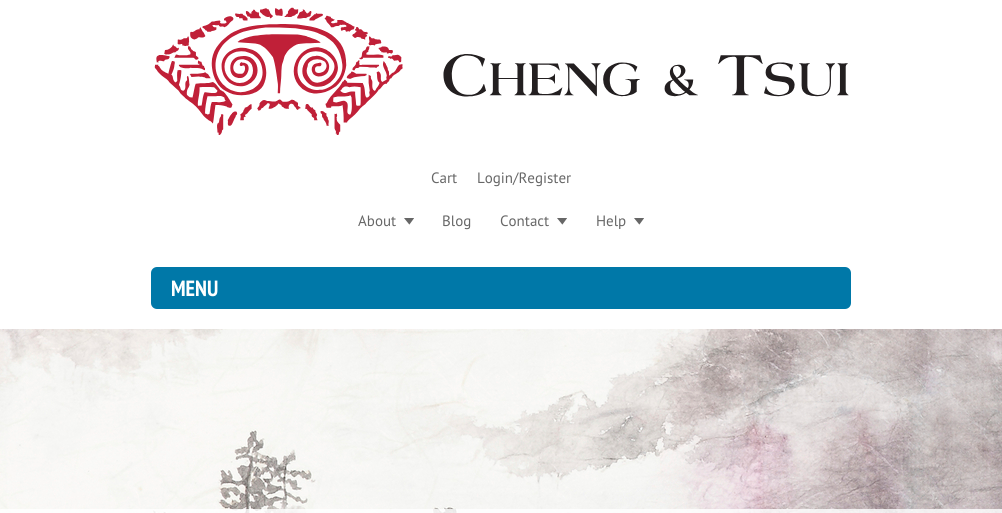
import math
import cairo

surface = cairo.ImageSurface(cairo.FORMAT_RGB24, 1002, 513)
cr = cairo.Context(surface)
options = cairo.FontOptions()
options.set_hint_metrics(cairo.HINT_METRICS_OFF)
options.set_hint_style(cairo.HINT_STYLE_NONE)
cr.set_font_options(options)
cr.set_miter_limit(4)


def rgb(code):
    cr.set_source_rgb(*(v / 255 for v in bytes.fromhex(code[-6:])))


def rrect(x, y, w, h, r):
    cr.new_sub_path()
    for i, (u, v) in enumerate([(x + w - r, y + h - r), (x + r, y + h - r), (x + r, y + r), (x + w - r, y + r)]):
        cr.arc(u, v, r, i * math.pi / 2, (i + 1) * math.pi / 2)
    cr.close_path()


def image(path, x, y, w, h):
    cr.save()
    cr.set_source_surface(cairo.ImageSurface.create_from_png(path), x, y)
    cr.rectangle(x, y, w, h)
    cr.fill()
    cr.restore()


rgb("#ffffff")
cr.paint()
image("img/1.png", 154, 7, 695, 128)
image("img/2.png", 404, 218, 10, 7)
image("img/2.png", 557, 218, 10, 7)
image("img/2.png", 634, 218, 10, 7)
rgb("#0078a8")
rrect(151, 267, 700, 42, 6)
cr.fill()
image("img/3.png", 0, 329, 1002, 184)
cr.set_source_rgba(1, 1, 1, 0.8)
cr.rectangle(0, 509, 1002, 4)
cr.fill()
cr.select_font_face("PT Sans")
cr.set_font_size(15)
rgb("#676767")
for x, y, s in [
    (431, 183, "Cart"),
    (477, 183, "Login/Register"),
    (358, 226, "About"),
    (442, 226, "Blog"),
    (500, 226, "Contact"),
    (596, 226, "Help"),
]:
    cr.move_to(x, y)
    cr.show_text(s)
cr.select_font_face("PT Sans Narrow", cairo.FONT_SLANT_NORMAL, cairo.FONT_WEIGHT_BOLD)
cr.set_font_size(22)
rgb("#ffffff")
cr.move_to(171, 296)
cr.show_text("MENU")
surface.write_to_png("page.png")
